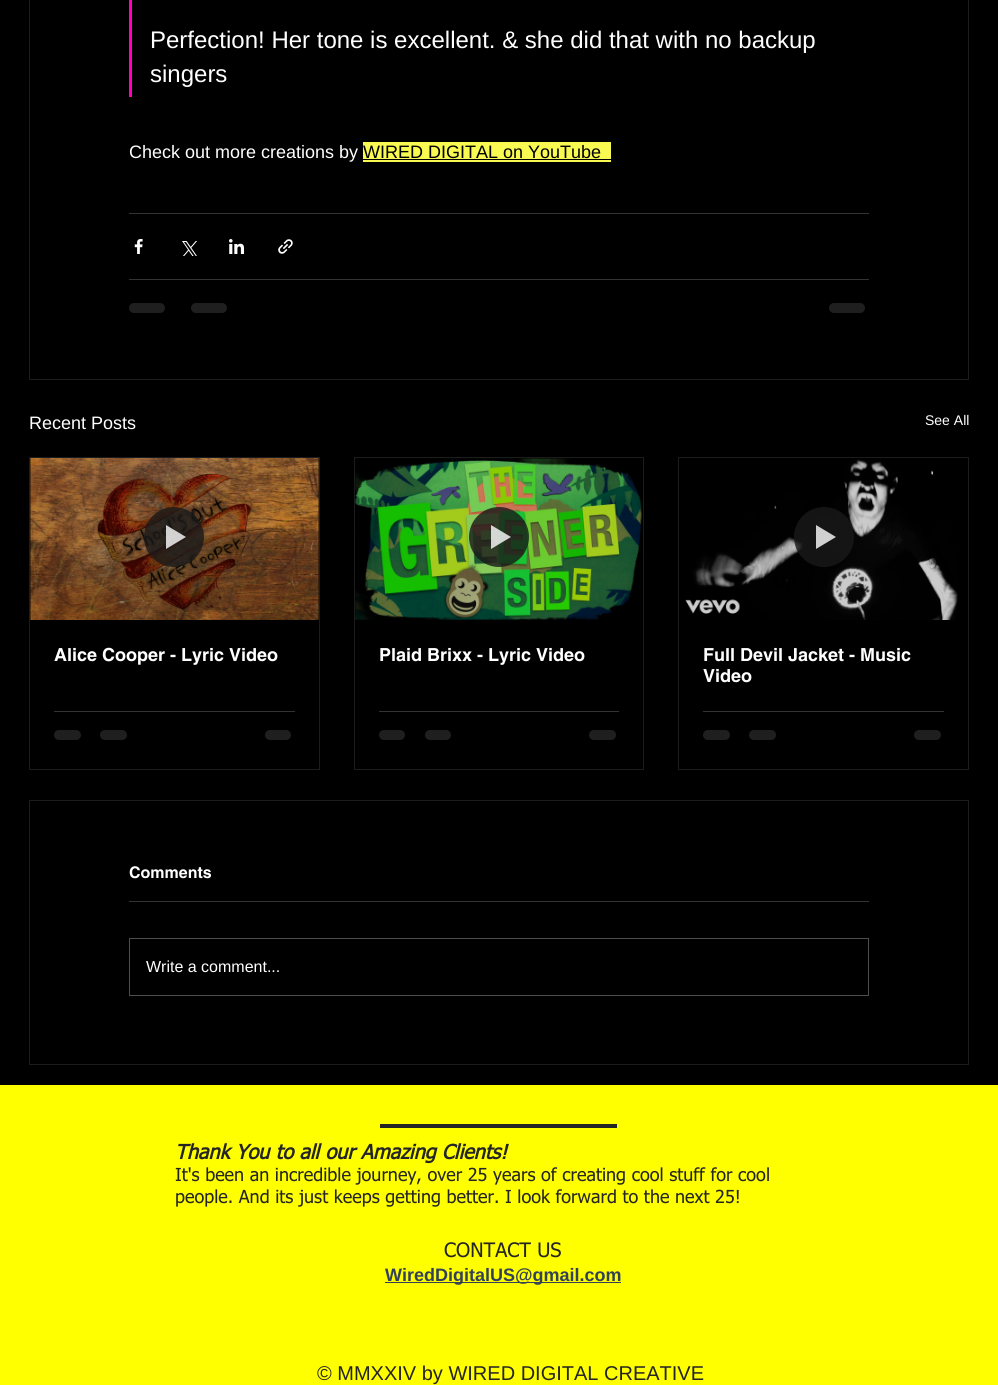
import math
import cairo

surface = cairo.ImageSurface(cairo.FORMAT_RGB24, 998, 1385)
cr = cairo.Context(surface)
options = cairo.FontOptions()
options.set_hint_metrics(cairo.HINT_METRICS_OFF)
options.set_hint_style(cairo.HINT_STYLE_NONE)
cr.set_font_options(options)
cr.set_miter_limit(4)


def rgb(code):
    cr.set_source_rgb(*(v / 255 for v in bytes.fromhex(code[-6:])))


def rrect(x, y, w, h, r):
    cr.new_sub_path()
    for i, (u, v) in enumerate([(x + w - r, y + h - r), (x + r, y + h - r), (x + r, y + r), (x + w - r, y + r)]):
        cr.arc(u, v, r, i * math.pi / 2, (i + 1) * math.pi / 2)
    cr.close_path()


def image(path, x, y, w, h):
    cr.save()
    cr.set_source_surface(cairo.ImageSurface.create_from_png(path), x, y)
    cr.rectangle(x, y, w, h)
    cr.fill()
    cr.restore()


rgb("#000000")
cr.paint()
cr.rectangle(29.5, -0.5, 939, 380)
rgb("#1c1c1c")
cr.set_line_width(1)
cr.stroke()
for x, y, w, h, color in [
    (129, 0, 3, 97, "#ff00bd"),
    (363, 142, 248, 20, "#f8f951"),
    (363, 159, 248, 1, "#000000"),
    (129, 213, 740, 1, "#333333"),
]:
    rgb(color)
    cr.rectangle(x, y, w, h)
    cr.fill()
image("img/1.png", 134, 239, 9, 15)
image("img/2.png", 182, 241, 15, 15)
image("img/3.png", 229, 239, 15, 15)
image("img/4.png", 278, 239, 15, 15)
cr.rectangle(129, 279, 740, 1)
cr.fill()
rgb("#1f1f1f")
rrect(129, 303, 36, 10, 5)
cr.fill()
rrect(191, 303, 36, 10, 5)
cr.fill()
rrect(829, 303, 36, 10, 5)
cr.fill()
cr.rectangle(29.5, 457.5, 290, 312)
rgb("#1c1c1c")
cr.stroke()
image("img/5.png", 30, 458, 289, 162)
cr.set_source_rgba(0.102, 0.102, 0.102, 0.8)
cr.arc(174, 537, 30, 0, 2 * math.pi)
cr.fill()
cr.set_source_rgba(1, 1, 1, 0.8)
cr.new_path()
cr.move_to(166, 525)
cr.line_to(166, 549)
cr.line_to(186, 537)
cr.close_path()
cr.fill()
rgb("#333333")
cr.rectangle(54, 711, 241, 1)
cr.fill()
rgb("#1f1f1f")
rrect(54, 730, 27, 10, 5)
cr.fill()
rrect(100, 730, 27, 10, 5)
cr.fill()
rrect(265, 730, 26, 10, 5)
cr.fill()
cr.rectangle(354.5, 457.5, 289, 312)
rgb("#1c1c1c")
cr.stroke()
image("img/6.png", 355, 458, 287, 162)
cr.set_source_rgba(0.102, 0.102, 0.102, 0.8)
cr.arc(499, 537, 30, 0, 2 * math.pi)
cr.fill()
cr.set_source_rgba(1, 1, 1, 0.8)
cr.new_path()
cr.move_to(491, 525)
cr.line_to(491, 549)
cr.line_to(511, 537)
cr.close_path()
cr.fill()
rgb("#333333")
cr.rectangle(379, 711, 240, 1)
cr.fill()
rgb("#1f1f1f")
rrect(379, 730, 26, 10, 5)
cr.fill()
rrect(425, 730, 26, 10, 5)
cr.fill()
rrect(589, 730, 27, 10, 5)
cr.fill()
cr.rectangle(678.5, 457.5, 290, 312)
rgb("#1c1c1c")
cr.stroke()
image("img/7.png", 685, 459, 273, 161)
cr.set_source_rgba(0.102, 0.102, 0.102, 0.8)
cr.arc(824, 537, 30, 0, 2 * math.pi)
cr.fill()
rgb("#d0d0d0")
cr.new_path()
cr.move_to(816, 525)
cr.line_to(816, 549)
cr.line_to(836, 537)
cr.close_path()
cr.fill()
rgb("#333333")
cr.rectangle(703, 711, 241, 1)
cr.fill()
rgb("#1f1f1f")
rrect(703, 730, 27, 10, 5)
cr.fill()
rrect(749, 730, 27, 10, 5)
cr.fill()
rrect(914, 730, 27, 10, 5)
cr.fill()
cr.rectangle(29.5, 800.5, 939, 264)
rgb("#1c1c1c")
cr.stroke()
rgb("#333333")
cr.rectangle(129, 901, 740, 1)
cr.fill()
cr.rectangle(129.5, 938.5, 739, 57)
rgb("#4d4d4d")
cr.stroke()
for x, y, w, h, color in [
    (0, 1085, 998, 300, "#ffff00"),
    (380, 1124, 237, 4, "#252525"),
    (385, 1282, 236, 1, "#324158"),
]:
    rgb(color)
    cr.rectangle(x, y, w, h)
    cr.fill()
cr.select_font_face("Liberation Sans")
cr.set_font_size(24)
rgb("#ffffff")
cr.move_to(150, 48)
cr.show_text("Perfection! Her tone is excellent. & she did that with no backup")
cr.move_to(150, 82)
cr.show_text("singers")
cr.set_font_size(18)
cr.move_to(129, 158)
cr.show_text("Check out more creations by")
rgb("#000000")
cr.move_to(363, 158)
cr.show_text("WIRED DIGITAL on YouTube")
rgb("#ffffff")
cr.move_to(29, 429)
cr.show_text("Recent Posts")
cr.set_font_size(14)
cr.move_to(925, 425)
cr.show_text("See All")
cr.select_font_face("helvetica", cairo.FONT_SLANT_NORMAL, cairo.FONT_WEIGHT_BOLD)
cr.set_font_size(18)
for x, y, s in [
    (54, 661, "Alice Cooper - Lyric Video"),
    (379, 661, "Plaid Brixx - Lyric Video"),
    (703, 661, "Full Devil Jacket - Music"),
    (703, 682, "Video"),
]:
    cr.move_to(x, y)
    cr.show_text(s)
cr.set_font_size(16)
cr.move_to(129, 878)
cr.show_text("Comments")
cr.select_font_face("Liberation Sans")
cr.move_to(146, 972)
cr.show_text("Write a comment...")
cr.select_font_face("tahoma", cairo.FONT_SLANT_ITALIC, cairo.FONT_WEIGHT_BOLD)
cr.set_font_size(20)
rgb("#252525")
cr.move_to(175, 1159)
cr.show_text("Thank You to all our Amazing Clients!")
cr.select_font_face("tahoma")
cr.set_font_size(18)
cr.move_to(175, 1181)
cr.show_text("It's been an incredible journey, over 25 years of creating cool stuff for cool")
cr.move_to(175, 1203)
cr.show_text("people. And its just keeps getting better. I look forward to the next 25!")
cr.set_font_size(20)
cr.move_to(444, 1257)
cr.show_text("CONTACT US")
cr.select_font_face("Liberation Sans", cairo.FONT_SLANT_NORMAL, cairo.FONT_WEIGHT_BOLD)
cr.set_font_size(18)
rgb("#324158")
cr.move_to(385, 1281)
cr.show_text("WiredDigitalUS@gmail.com")
cr.select_font_face("Liberation Sans")
cr.set_font_size(20)
rgb("#252525")
cr.move_to(317, 1380)
cr.show_text("© MMXXIV by WIRED DIGITAL CREATIVE")
surface.write_to_png("page.png")
